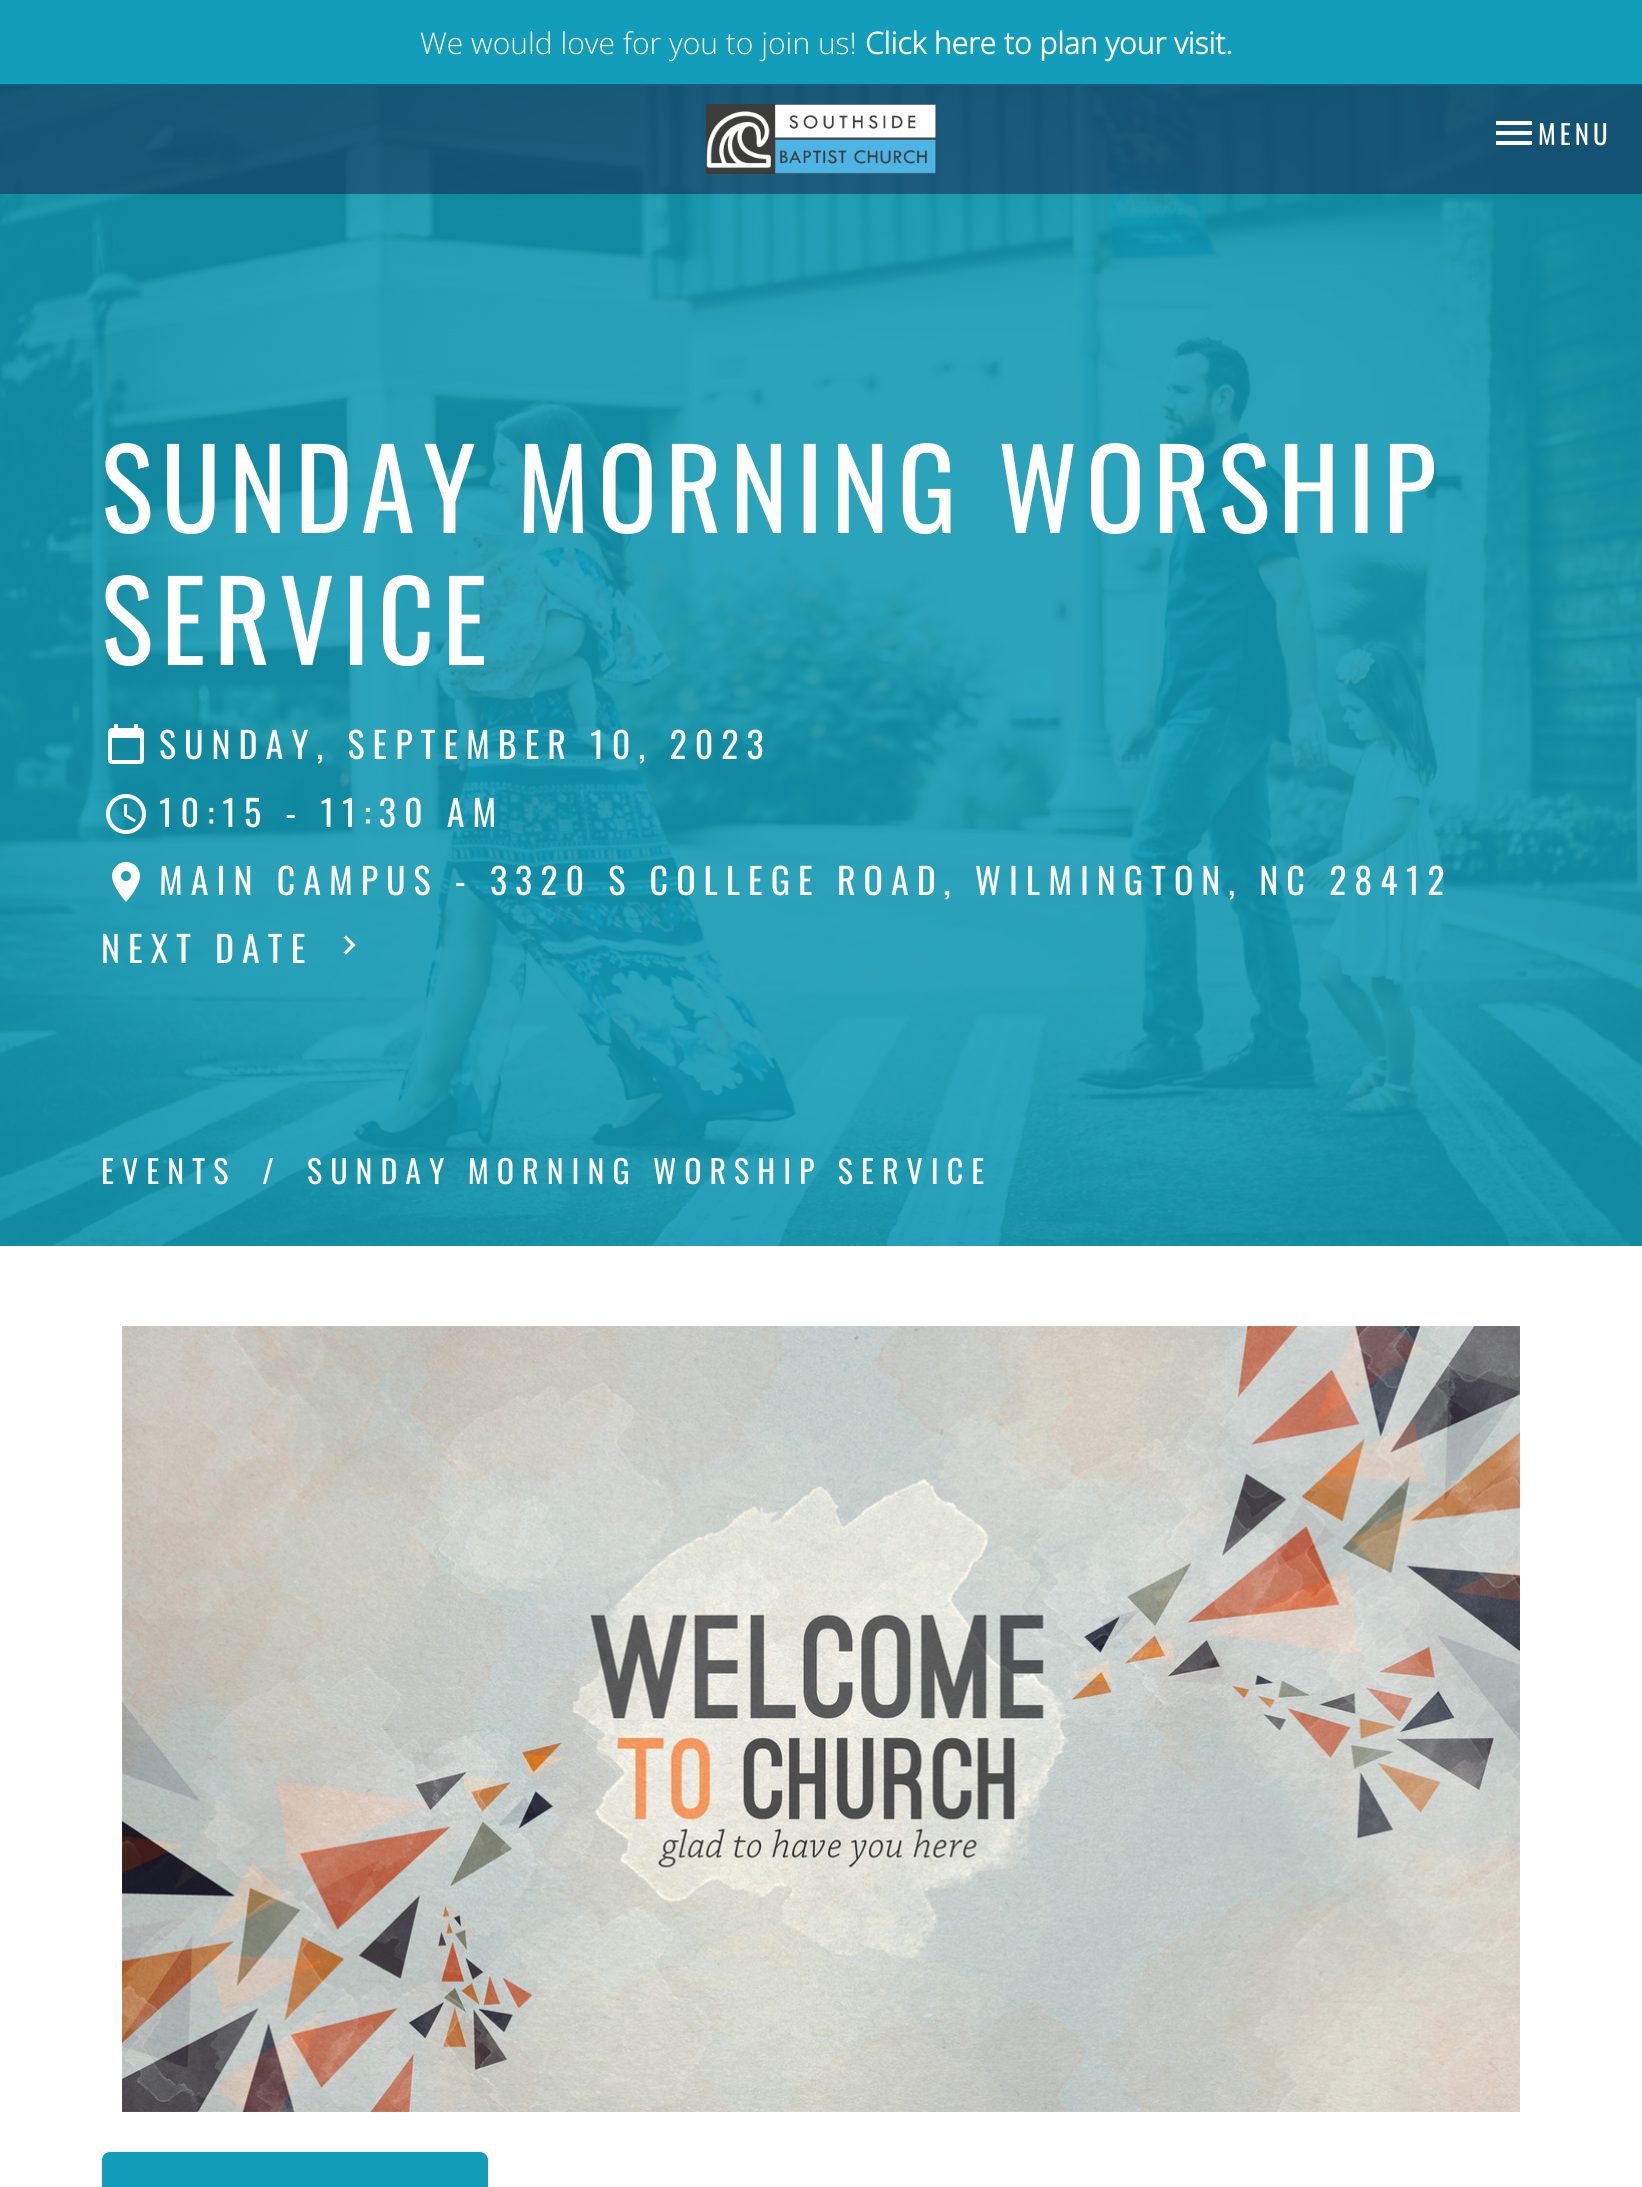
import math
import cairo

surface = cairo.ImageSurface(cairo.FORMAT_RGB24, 1642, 2187)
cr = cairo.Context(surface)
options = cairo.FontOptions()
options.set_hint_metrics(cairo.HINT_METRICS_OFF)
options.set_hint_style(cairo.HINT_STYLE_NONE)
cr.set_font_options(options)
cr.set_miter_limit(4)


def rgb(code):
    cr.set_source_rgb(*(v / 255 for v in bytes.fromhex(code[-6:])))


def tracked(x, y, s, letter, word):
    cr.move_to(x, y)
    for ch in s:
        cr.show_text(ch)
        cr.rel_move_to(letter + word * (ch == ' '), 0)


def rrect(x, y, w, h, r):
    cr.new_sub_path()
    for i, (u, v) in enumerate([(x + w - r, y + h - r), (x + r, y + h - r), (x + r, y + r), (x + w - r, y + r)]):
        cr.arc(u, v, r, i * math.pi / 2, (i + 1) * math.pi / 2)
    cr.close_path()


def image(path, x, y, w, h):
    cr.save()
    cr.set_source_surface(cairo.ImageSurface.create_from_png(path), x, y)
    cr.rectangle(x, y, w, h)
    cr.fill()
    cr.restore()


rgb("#ffffff")
cr.paint()
rgb("#129eba")
cr.rectangle(0, 0, 1642, 86)
cr.fill()
image("img/2.png", 0, 86, 1642, 1160)
cr.set_source_rgba(0.09, 0.133, 0.302, 0.53)
cr.rectangle(0, 84, 1642, 110)
cr.fill()
image("img/1.png", 706, 104, 230, 70)
rgb("#ffffff")
cr.new_path()
cr.move_to(1496, 145)
cr.line_to(1532, 145)
cr.line_to(1532, 141)
cr.line_to(1496, 141)
cr.close_path()
cr.move_to(1496, 135)
cr.line_to(1532, 135)
cr.line_to(1532, 131)
cr.line_to(1496, 131)
cr.close_path()
cr.move_to(1496, 121)
cr.line_to(1496, 125)
cr.line_to(1532, 125)
cr.line_to(1532, 121)
cr.close_path()
cr.fill()
image("img/3.png", 108, 724, 36, 40)
image("img/4.png", 106, 794, 40, 40)
image("img/5.png", 112, 862, 28, 40)
cr.new_path()
cr.move_to(343.5, 952.5)
cr.line_to(351, 945)
cr.line_to(343.5, 937.5)
cr.line_to(346, 935.5)
cr.line_to(355.5, 945)
cr.line_to(346, 954.5)
cr.close_path()
cr.fill()
image("img/6.png", 122, 1326, 1398, 786)
rgb("#129eba")
rrect(102, 2152, 386, 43, 8)
cr.fill()
cr.select_font_face("Open Sans Light")
cr.set_font_size(30)
rgb("#ffffff")
cr.move_to(420, 54)
cr.show_text("We would love for you to join us!")
cr.select_font_face("Open Sans", cairo.FONT_SLANT_NORMAL, cairo.FONT_WEIGHT_BOLD)
cr.move_to(865, 54)
cr.show_text("Click here to plan your visit.")
cr.select_font_face("Oswald")
cr.set_font_size(27)
tracked(1538, 145, "MENU", 4, 0)
cr.set_font_size(110)
tracked(101, 533, "SUNDAY MORNING WORSHIP", 8, 0)
tracked(101, 665, "SERVICE", 8, 0)
cr.set_font_size(36)
for x, y, s in [
    (159, 759, "SUNDAY, SEPTEMBER 10, 2023"),
    (159, 827, "10:15 - 11:30 AM"),
    (159, 895, "MAIN CAMPUS - 3320 S COLLEGE ROAD, WILMINGTON, NC 28412"),
    (101, 963, "NEXT DATE"),
]:
    tracked(x, y, s, 8, 0)
cr.set_font_size(32)
for x, y, s in [
    (101, 1184, "EVENTS"),
    (262, 1184, "/"),
    (307, 1184, "SUNDAY MORNING WORSHIP SERVICE"),
]:
    tracked(x, y, s, 8, 0)
surface.write_to_png("page.png")
